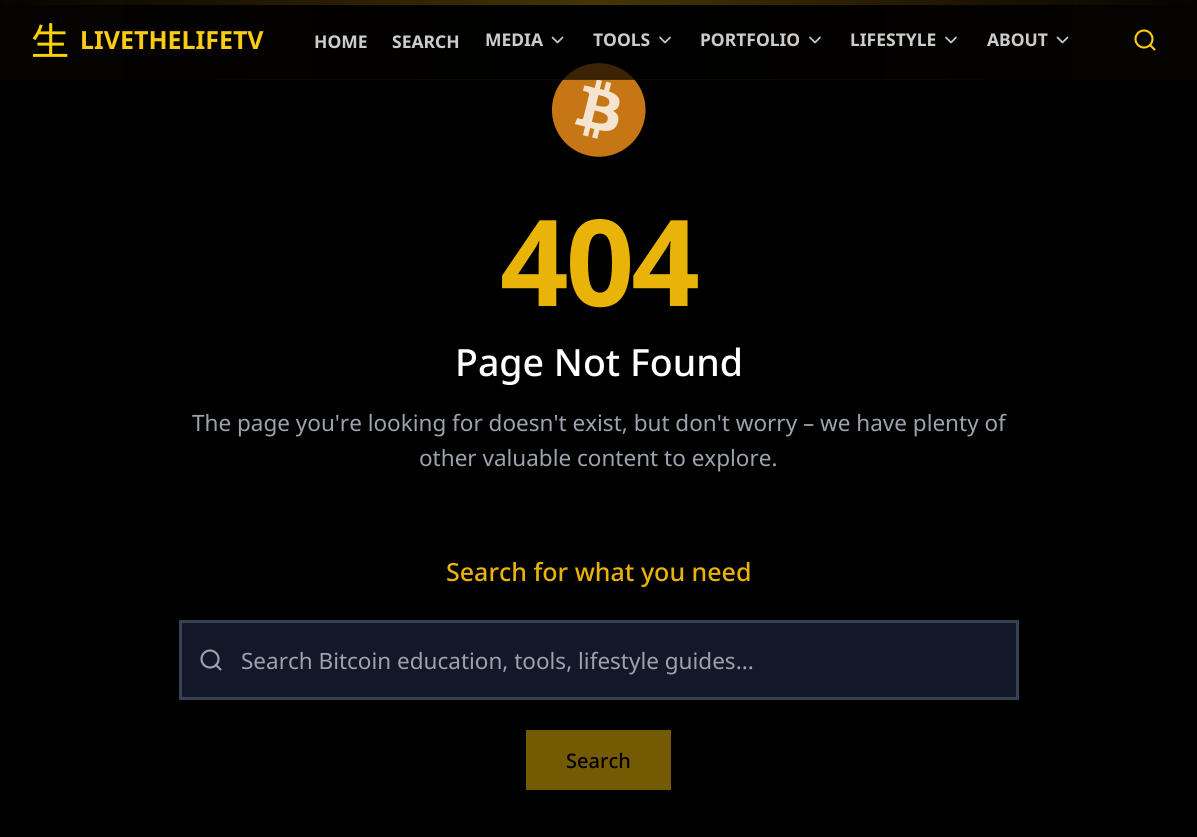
import math
import cairo

surface = cairo.ImageSurface(cairo.FORMAT_RGB24, 1197, 837)
cr = cairo.Context(surface)
options = cairo.FontOptions()
options.set_hint_metrics(cairo.HINT_METRICS_OFF)
options.set_hint_style(cairo.HINT_STYLE_NONE)
cr.set_font_options(options)
cr.set_miter_limit(4)


def rgb(code):
    cr.set_source_rgb(*(v / 255 for v in bytes.fromhex(code[-6:])))


def tracked(x, y, s, letter, word):
    cr.move_to(x, y)
    for ch in s:
        cr.show_text(ch)
        cr.rel_move_to(letter + word * (ch == ' '), 0)


def image(path, x, y, w, h):
    cr.save()
    cr.set_source_surface(cairo.ImageSurface.create_from_png(path), x, y)
    cr.rectangle(x, y, w, h)
    cr.fill()
    cr.restore()


rgb("#000000")
cr.paint()
gradient = cairo.LinearGradient(0, 2.5, 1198, 2.5)
gradient.add_color_stop_rgba(0, 0, 0, 0, 1)
gradient.add_color_stop_rgba(0.5, 0.918, 0.702, 0.031, 1)
gradient.add_color_stop_rgba(1, 0, 0, 0, 1)
cr.set_source(gradient)
cr.rectangle(0, 0, 1197, 5)
cr.fill()
image("img/2.png", 551, 63, 95, 94)
cr.set_source_rgba(0, 0, 0, 0.7)
cr.rectangle(9, 0, 1180, 80)
cr.fill()
gradient = cairo.LinearGradient(0, 40, 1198, 40)
gradient.add_color_stop_rgba(0, 0.443, 0.247, 0.071, 0.05)
gradient.add_color_stop_rgba(0.5, 0.443, 0.247, 0.071, 0)
gradient.add_color_stop_rgba(1, 0.443, 0.247, 0.071, 0.05)
cr.set_source(gradient)
cr.rectangle(0, 0, 1197, 80)
cr.fill()
image("img/1.png", 32, 23, 36, 34)
cr.new_path()
cr.move_to(552.5, 37.5)
cr.line_to(557.5, 42.5)
cr.line_to(562.5, 37.5)
rgb("#cccccc")
cr.set_line_width(1.7)
cr.set_line_cap(cairo.LINE_CAP_ROUND)
cr.set_line_join(cairo.LINE_JOIN_ROUND)
cr.stroke()
cr.new_path()
cr.move_to(660, 37.5)
cr.line_to(665, 42.5)
cr.line_to(670, 37.5)
cr.stroke()
cr.new_path()
cr.move_to(810, 37.5)
cr.line_to(815, 42.5)
cr.line_to(820, 37.5)
cr.stroke()
cr.new_path()
cr.move_to(946, 37.5)
cr.line_to(951, 42.5)
cr.line_to(956, 37.5)
rgb("#cdcccc")
cr.stroke()
cr.new_path()
cr.move_to(1057.5, 37.5)
cr.line_to(1062.5, 42.5)
cr.line_to(1067.5, 37.5)
cr.stroke()
cr.arc(1144, 39, 8.5, 0, 2 * math.pi)
rgb("#facc15")
cr.set_line_width(2.1)
cr.set_line_cap(cairo.LINE_CAP_BUTT)
cr.set_line_join(cairo.LINE_JOIN_MITER)
cr.stroke()
cr.new_path()
cr.move_to(1154.5, 49.5)
cr.line_to(1150, 45)
cr.set_line_cap(cairo.LINE_CAP_ROUND)
cr.set_line_join(cairo.LINE_JOIN_ROUND)
cr.stroke()
gradient = cairo.LinearGradient(0, 79, 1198, 79)
gradient.add_color_stop_rgba(0, 0.918, 0.702, 0.031, 0)
gradient.add_color_stop_rgba(0.5, 0.918, 0.702, 0.031, 0.06)
gradient.add_color_stop_rgba(1, 0.918, 0.702, 0.031, 0)
cr.set_source(gradient)
cr.rectangle(215, 79, 768, 1)
cr.fill()
rgb("#111827")
cr.rectangle(180.5, 621.5, 837, 77)
cr.fill_preserve()
rgb("#374151")
cr.set_line_width(3)
cr.set_line_cap(cairo.LINE_CAP_BUTT)
cr.set_line_join(cairo.LINE_JOIN_MITER)
cr.stroke()
cr.arc(210, 659, 8.5, 0, 2 * math.pi)
rgb("#9ca3af")
cr.set_line_width(2.1)
cr.stroke()
cr.new_path()
cr.move_to(220.5, 669.5)
cr.line_to(216, 665)
cr.set_line_cap(cairo.LINE_CAP_ROUND)
cr.set_line_join(cairo.LINE_JOIN_ROUND)
cr.stroke()
rgb("#755a04")
cr.rectangle(526, 730, 145, 60)
cr.fill()
cr.select_font_face("Noto Sans", cairo.FONT_SLANT_NORMAL, cairo.FONT_WEIGHT_BOLD)
cr.set_font_size(25)
rgb("#facc15")
cr.move_to(80, 49)
cr.show_text("LIVETHELIFETV")
cr.set_font_size(17.5)
rgb("#cccccc")
for x, y, s in [
    (314, 48, "HOME"),
    (392, 48, "SEARCH"),
    (485, 46, "MEDIA"),
    (593, 46, "TOOLS"),
    (700, 46, "PORTFOLIO"),
    (850, 46, "LIFESTYLE"),
    (987, 46, "ABOUT"),
]:
    cr.move_to(x, y)
    cr.show_text(s)
cr.set_font_size(120)
rgb("#eab308")
tracked(500, 306, "404", -3, 0)
cr.select_font_face("Noto Sans Medium")
cr.set_font_size(37.5)
rgb("#ffffff")
cr.move_to(455, 376)
cr.show_text("Page Not Found")
cr.select_font_face("Noto Sans")
cr.set_font_size(22.5)
rgb("#9ca3af")
cr.move_to(192, 431)
cr.show_text("The page you're looking for doesn't exist, but don't worry – we have plenty of")
cr.move_to(419, 466)
cr.show_text("other valuable content to explore.")
cr.select_font_face("Noto Sans Medium")
cr.set_font_size(25)
rgb("#eab308")
cr.move_to(446, 581)
cr.show_text("Search for what you need")
cr.select_font_face("Noto Sans")
cr.set_font_size(22.5)
rgb("#9ca3af")
cr.move_to(241, 669)
cr.show_text("Search Bitcoin education, tools, lifestyle guides...")
cr.select_font_face("Noto Sans Medium")
cr.set_font_size(20)
rgb("#000000")
cr.move_to(566, 768)
cr.show_text("Search")
surface.write_to_png("page.png")
